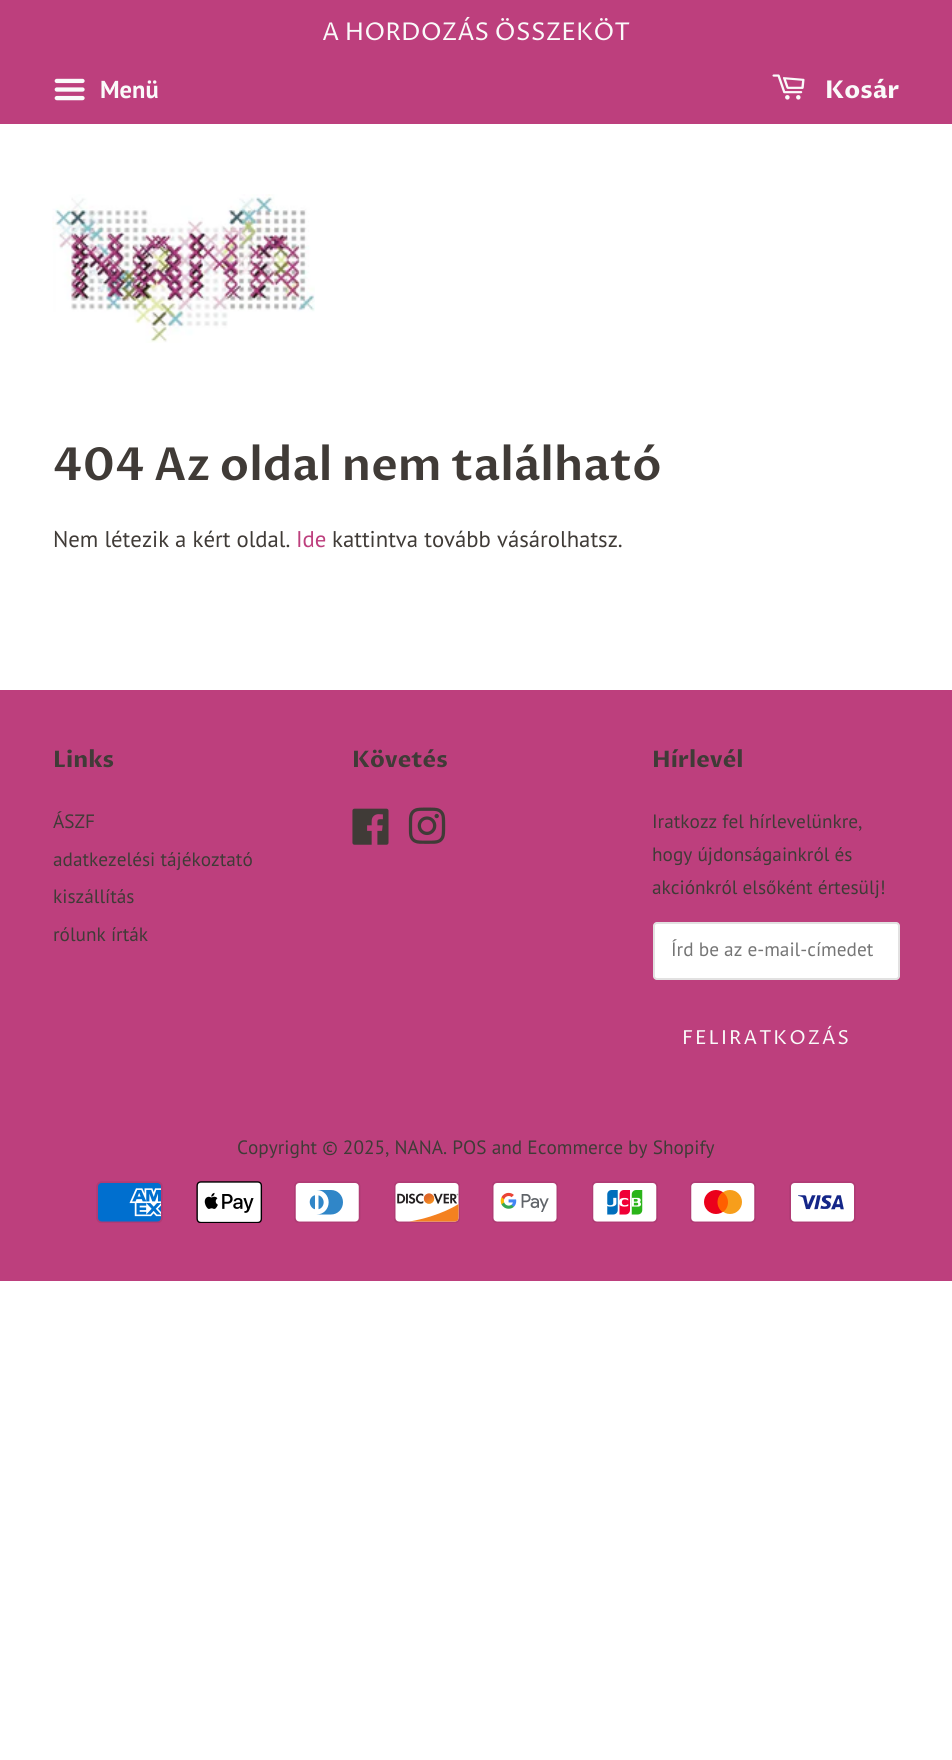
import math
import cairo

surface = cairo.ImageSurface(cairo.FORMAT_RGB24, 952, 1760)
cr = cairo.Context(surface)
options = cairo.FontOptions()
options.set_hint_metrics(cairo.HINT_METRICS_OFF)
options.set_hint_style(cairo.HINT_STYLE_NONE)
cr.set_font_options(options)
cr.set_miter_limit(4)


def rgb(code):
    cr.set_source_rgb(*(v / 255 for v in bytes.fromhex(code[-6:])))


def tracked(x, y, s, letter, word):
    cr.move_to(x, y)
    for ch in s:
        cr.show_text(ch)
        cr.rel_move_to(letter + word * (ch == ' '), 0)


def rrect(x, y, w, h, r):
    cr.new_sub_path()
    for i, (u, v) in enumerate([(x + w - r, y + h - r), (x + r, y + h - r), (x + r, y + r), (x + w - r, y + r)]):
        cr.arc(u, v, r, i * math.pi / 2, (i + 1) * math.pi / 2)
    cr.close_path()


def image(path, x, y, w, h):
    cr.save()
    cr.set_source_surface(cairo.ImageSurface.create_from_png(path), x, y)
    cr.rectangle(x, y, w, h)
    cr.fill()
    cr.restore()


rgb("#ffffff")
cr.paint()
rgb("#bd3f7d")
cr.rectangle(0, 0, 952, 124)
cr.fill()
image("img/1.png", 54, 78, 31, 23)
image("img/2.png", 772, 74, 33, 26)
image("img/3.png", 52, 194, 263, 149)
cr.rectangle(0, 690, 952, 591)
cr.fill()
image("img/4.png", 352, 808, 37, 37)
image("img/5.png", 408, 807, 38, 37)
rgb("#ffffff")
rrect(653, 922, 247, 58, 4)
cr.fill()
rrect(654, 923, 245, 56, 3)
cr.set_source_rgba(0.251, 0.231, 0.216, 0.15)
cr.stroke()
image("img/6.png", 96, 1181, 67, 42)
image("img/7.png", 196, 1181, 67, 42)
image("img/8.png", 294, 1181, 67, 42)
image("img/9.png", 394, 1181, 66, 42)
image("img/10.png", 492, 1181, 66, 42)
image("img/11.png", 592, 1181, 66, 42)
image("img/12.png", 690, 1181, 66, 42)
image("img/13.png", 789, 1181, 67, 42)
cr.select_font_face("Proza Libre")
cr.set_font_size(24.5)
rgb("#fafafa")
cr.move_to(322, 40)
cr.show_text("A HORDOZÁS ÖSSZEKÖT")
cr.select_font_face("PT Sans", cairo.FONT_SLANT_NORMAL, cairo.FONT_WEIGHT_BOLD)
cr.move_to(100, 98)
cr.show_text("Menü")
cr.select_font_face("Proza Libre", cairo.FONT_SLANT_NORMAL, cairo.FONT_WEIGHT_BOLD)
cr.move_to(825, 98)
cr.show_text("Kosár")
cr.select_font_face("Proza Libre SemiBold")
cr.set_font_size(45.5)
rgb("#403b37")
cr.move_to(53, 480)
cr.show_text("404 Az oldal nem található")
cr.select_font_face("PT Sans")
cr.set_font_size(22.75)
cr.move_to(53, 547)
cr.show_text("Nem létezik a kért oldal.")
rgb("#bd3f7d")
cr.move_to(296, 547)
cr.show_text("Ide")
rgb("#403b37")
cr.move_to(332, 547)
cr.show_text("kattintva tovább vásárolhatsz.")
cr.select_font_face("Proza Libre", cairo.FONT_SLANT_NORMAL, cairo.FONT_WEIGHT_BOLD)
cr.move_to(53, 767)
cr.show_text("Links")
cr.select_font_face("PT Sans")
cr.set_font_size(19.3)
for x, y, s in [
    (53, 828, "ÁSZF"),
    (53, 866, "adatkezelési tájékoztató"),
    (53, 903, "kiszállítás"),
    (53, 941, "rólunk írták"),
]:
    cr.move_to(x, y)
    cr.show_text(s)
cr.select_font_face("Proza Libre", cairo.FONT_SLANT_NORMAL, cairo.FONT_WEIGHT_BOLD)
cr.set_font_size(22.75)
cr.move_to(352, 767)
cr.show_text("Követés")
cr.move_to(652, 767)
cr.show_text("Hírlevél")
cr.select_font_face("PT Sans")
cr.set_font_size(19.3)
for x, y, s in [
    (652, 828, "Iratkozz fel hírlevelünkre,"),
    (652, 861, "hogy újdonságainkról és"),
    (652, 894, "akciónkról elsőként értesülj!"),
]:
    cr.move_to(x, y)
    cr.show_text(s)
rgb("#757575")
cr.move_to(671, 956)
cr.show_text("Írd be az e-mail-címedet")
cr.select_font_face("Proza Libre")
rgb("#fafafa")
tracked(682, 1044, "FELIRATKOZÁS", 2, 0)
cr.select_font_face("PT Sans")
rgb("#403b37")
cr.move_to(237, 1154)
cr.show_text("Copyright © 2025, NANA. POS and Ecommerce by Shopify")
surface.write_to_png("page.png")
